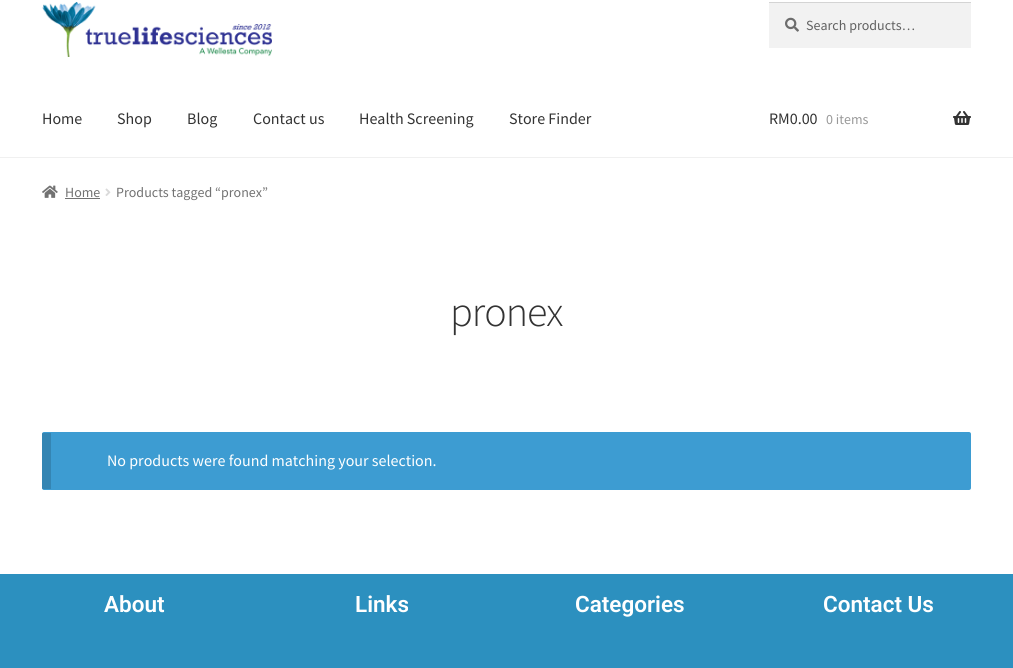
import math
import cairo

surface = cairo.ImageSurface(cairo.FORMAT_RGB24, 1013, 668)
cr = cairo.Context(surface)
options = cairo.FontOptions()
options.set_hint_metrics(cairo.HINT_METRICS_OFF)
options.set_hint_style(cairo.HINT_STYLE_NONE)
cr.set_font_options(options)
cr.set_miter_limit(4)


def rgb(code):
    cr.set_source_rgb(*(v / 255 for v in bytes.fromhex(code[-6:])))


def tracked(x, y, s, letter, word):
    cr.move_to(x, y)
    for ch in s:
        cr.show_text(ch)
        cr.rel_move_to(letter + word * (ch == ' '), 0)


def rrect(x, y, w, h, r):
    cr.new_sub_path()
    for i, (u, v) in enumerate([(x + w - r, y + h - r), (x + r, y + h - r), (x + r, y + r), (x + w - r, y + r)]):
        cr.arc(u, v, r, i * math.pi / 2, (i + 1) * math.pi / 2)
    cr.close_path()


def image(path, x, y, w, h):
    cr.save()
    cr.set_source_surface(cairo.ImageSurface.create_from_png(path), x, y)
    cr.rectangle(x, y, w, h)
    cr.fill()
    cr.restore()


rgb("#ffffff")
cr.paint()
rgb("#f0f0f0")
cr.rectangle(0, 157, 1013, 1)
cr.fill()
image("img/1.png", 42, 2, 230, 55)
rgb("#f2f2f2")
cr.rectangle(769, 3, 202, 45)
cr.fill()
image("img/2.png", 785, 17, 14, 15)
rgb("#d4d4d4")
cr.rectangle(769, 2, 202, 1)
cr.fill()
image("img/3.png", 953, 111, 18, 14)
image("img/4.png", 42, 185, 16, 13)
rgb("#727272")
cr.rectangle(65, 198, 35, 1)
cr.fill()
image("img/5.png", 105, 188, 6, 8)
rgb("#3d9cd2")
rrect(42, 432, 929, 58, 2)
cr.fill()
cr.set_source_rgba(0, 0, 0, 0.15)
cr.rectangle(42, 433, 9, 56)
cr.fill()
rgb("#2c90bf")
cr.rectangle(0, 574, 1013, 94)
cr.fill()
cr.select_font_face("Source Sans Pro")
cr.set_font_size(14)
rgb("#616161")
cr.move_to(806, 30)
cr.show_text("Search products…")
cr.set_font_size(16)
rgb("#333333")
for x, y, s in [
    (42, 124, "Home"),
    (117, 124, "Shop"),
    (187, 124, "Blog"),
    (253, 124, "Contact us"),
    (359, 124, "Health Screening"),
    (509, 124, "Store Finder"),
    (769, 124, "RM0.00"),
]:
    cr.move_to(x, y)
    cr.show_text(s)
cr.set_font_size(14)
rgb("#999999")
cr.move_to(826, 124)
cr.show_text("0 items")
rgb("#727272")
cr.move_to(65, 197)
cr.show_text("Home")
cr.move_to(116, 197)
cr.show_text("Products tagged “pronex”")
cr.select_font_face("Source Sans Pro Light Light")
cr.set_font_size(42)
rgb("#333333")
tracked(450, 326, "pronex", -1, 0)
cr.select_font_face("Source Sans Pro")
cr.set_font_size(16)
rgb("#ffffff")
cr.move_to(107, 466)
cr.show_text("No products were found matching your selection.")
cr.select_font_face("Roboto SemiBold")
cr.set_font_size(22.5)
for x, y, s in [
    (104, 612, "About"),
    (355, 612, "Links"),
    (575, 612, "Categories"),
    (823, 612, "Contact Us"),
]:
    cr.move_to(x, y)
    cr.show_text(s)
surface.write_to_png("page.png")
